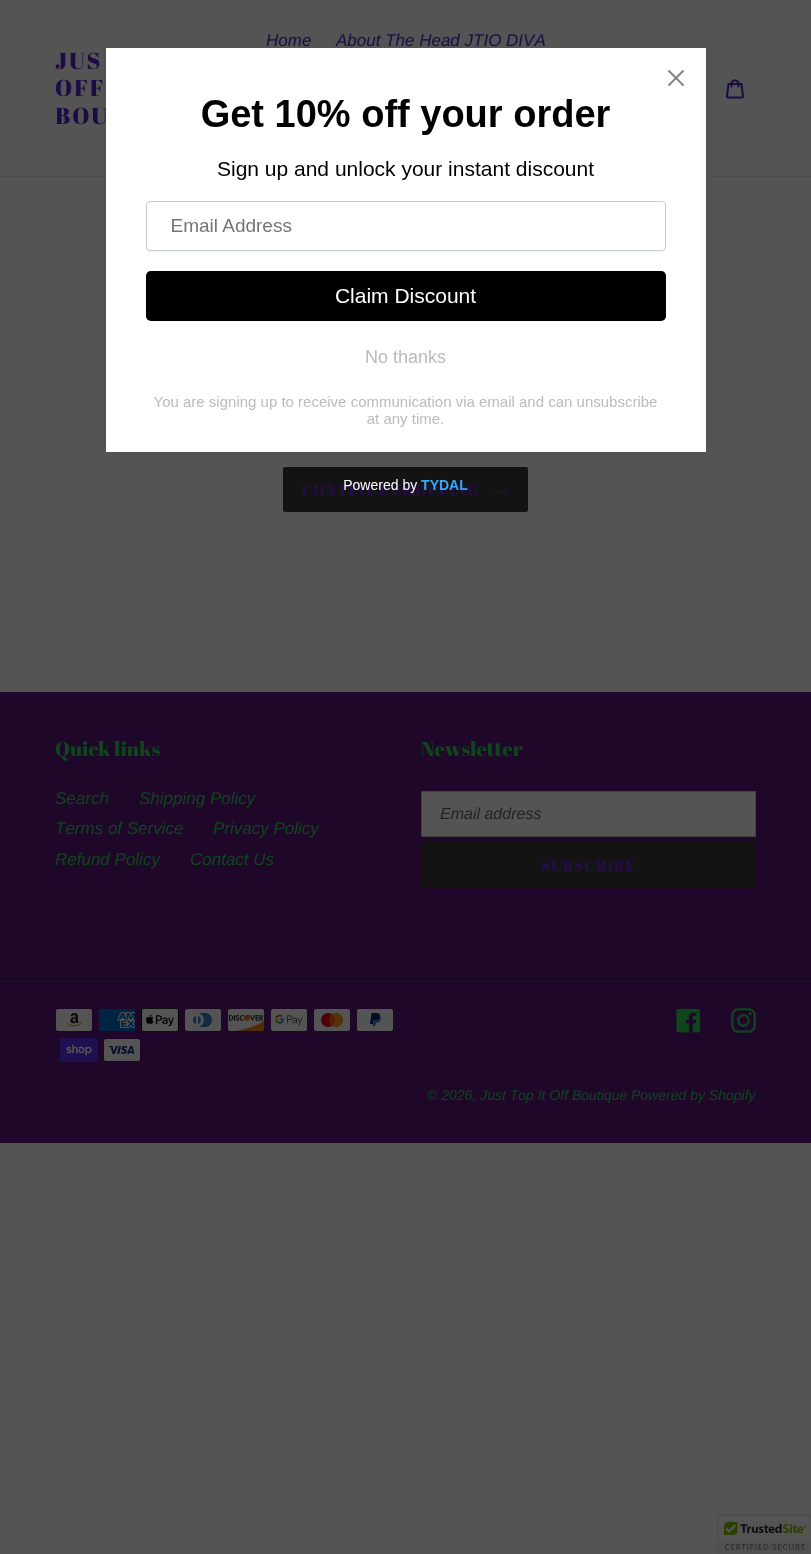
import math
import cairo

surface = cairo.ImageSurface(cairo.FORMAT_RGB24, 811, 1554)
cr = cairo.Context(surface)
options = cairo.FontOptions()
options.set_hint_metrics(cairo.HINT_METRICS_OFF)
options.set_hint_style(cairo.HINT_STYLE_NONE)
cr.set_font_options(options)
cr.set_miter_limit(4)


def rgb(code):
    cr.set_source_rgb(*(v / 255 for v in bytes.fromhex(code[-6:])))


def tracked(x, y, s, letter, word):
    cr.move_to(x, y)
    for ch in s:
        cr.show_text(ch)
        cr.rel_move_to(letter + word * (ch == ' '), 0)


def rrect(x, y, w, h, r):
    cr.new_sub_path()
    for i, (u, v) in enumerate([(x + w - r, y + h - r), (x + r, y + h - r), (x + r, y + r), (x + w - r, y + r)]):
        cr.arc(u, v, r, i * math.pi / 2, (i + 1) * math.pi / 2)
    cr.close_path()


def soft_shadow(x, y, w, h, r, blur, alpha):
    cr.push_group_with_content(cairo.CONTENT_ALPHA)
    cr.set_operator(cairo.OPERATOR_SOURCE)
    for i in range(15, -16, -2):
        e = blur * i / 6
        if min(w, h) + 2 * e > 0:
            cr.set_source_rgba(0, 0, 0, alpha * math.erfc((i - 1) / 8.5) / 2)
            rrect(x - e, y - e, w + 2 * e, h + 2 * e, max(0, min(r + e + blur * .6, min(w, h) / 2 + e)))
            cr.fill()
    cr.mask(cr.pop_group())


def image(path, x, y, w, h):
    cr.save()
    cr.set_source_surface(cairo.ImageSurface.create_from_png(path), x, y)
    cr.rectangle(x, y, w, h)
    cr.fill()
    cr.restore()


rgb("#ffffff")
cr.paint()
rgb("#ebebeb")
cr.rectangle(0, 176, 811, 1)
cr.fill()
image("img/2.png", 726, 79, 18, 20)
rgb("#3a3a3a")
rrect(283, 467, 245, 45, 2)
cr.fill()
image("img/3.png", 489, 487, 20, 8)
rgb("#5f147e")
cr.rectangle(0, 692, 811, 451)
cr.fill()
rgb("#ffffff")
cr.new_path()
cr.move_to(423, 791.5)
cr.line_to(755.5, 791.5)
cr.line_to(755.5, 836.5)
cr.line_to(423, 836.5)
cr.curve_to(422, 836.5, 421.5, 836, 421.5, 835)
cr.line_to(421.5, 793)
cr.curve_to(421.5, 792, 422, 791.5, 423, 791.5)
cr.close_path()
cr.fill_preserve()
rgb("#cccccc")
cr.set_line_width(1)
cr.stroke()
rgb("#3a3a3a")
cr.new_path()
cr.move_to(421, 842)
cr.line_to(754, 842)
cr.curve_to(755, 842, 756, 843, 756, 844)
cr.line_to(756, 886)
cr.curve_to(756, 887, 755, 888, 754, 888)
cr.line_to(421, 888)
cr.close_path()
cr.fill()
rgb("#3e0d52")
cr.rectangle(0, 978, 811, 1)
cr.fill()
image("img/4.png", 55, 1008, 38, 24)
image("img/5.png", 98, 1008, 38, 24)
image("img/6.png", 141, 1008, 38, 24)
image("img/7.png", 184, 1008, 38, 24)
image("img/8.png", 227, 1008, 38, 24)
image("img/9.png", 270, 1008, 38, 24)
image("img/10.png", 313, 1008, 38, 24)
image("img/11.png", 356, 1008, 38, 24)
image("img/12.png", 60, 1038, 38, 24)
image("img/13.png", 103, 1038, 38, 24)
image("img/14.png", 676, 1009, 24, 24)
image("img/15.png", 731, 1008, 25, 25)
rgb("#000000")
soft_shadow(719, 1516, 92, 38, 2, 2.5, 0.2)
image("img/16.png", 719, 1516, 92, 38)
cr.select_font_face("Liberation Sans", cairo.FONT_SLANT_ITALIC)
cr.set_font_size(17)
rgb("#5621d2")
cr.move_to(266, 46)
cr.show_text("Home")
cr.move_to(336, 46)
cr.show_text("About The Head JTIO DIVA")
cr.select_font_face("Abril Fatface")
cr.set_font_size(23)
for x, y, s in [
    (55, 69, "JUS"),
    (55, 96, "OFF"),
    (55, 124, "BOU"),
]:
    tracked(x, y, s, 2, 0)
cr.set_font_size(15)
rgb("#7224d7")
tracked(302, 495, "CONTINUE SHOPPING", 1.25, 0)
cr.set_font_size(20)
rgb("#28d451")
cr.move_to(55, 756)
cr.show_text("Quick links")
cr.select_font_face("Liberation Sans", cairo.FONT_SLANT_ITALIC)
cr.set_font_size(17)
for x, y, s in [
    (55, 804, "Search"),
    (139, 804, "Shipping Policy"),
    (55, 834, "Terms of Service"),
    (213, 834, "Privacy Policy"),
    (55, 865, "Refund Policy"),
    (190, 865, "Contact Us"),
]:
    cr.move_to(x, y)
    cr.show_text(s)
cr.select_font_face("Abril Fatface")
cr.set_font_size(20)
cr.move_to(421, 756)
cr.show_text("Newsletter")
cr.select_font_face("Liberation Sans", cairo.FONT_SLANT_ITALIC)
cr.set_font_size(16)
rgb("#666666")
cr.move_to(440, 819)
cr.show_text("Email address")
cr.select_font_face("Abril Fatface")
cr.set_font_size(15)
rgb("#7224d7")
tracked(541, 871, "SUBSCRIBE", 1.25, 0)
cr.select_font_face("Liberation Sans", cairo.FONT_SLANT_ITALIC)
cr.set_font_size(14)
rgb("#28d451")
cr.move_to(427, 1100)
cr.show_text("© 2026, Just Top It Off Boutique")
cr.move_to(631, 1100)
cr.show_text("Powered by Shopify")
image("img/1.png", 0, 0, 811, 1554)
surface.write_to_png("page.png")
